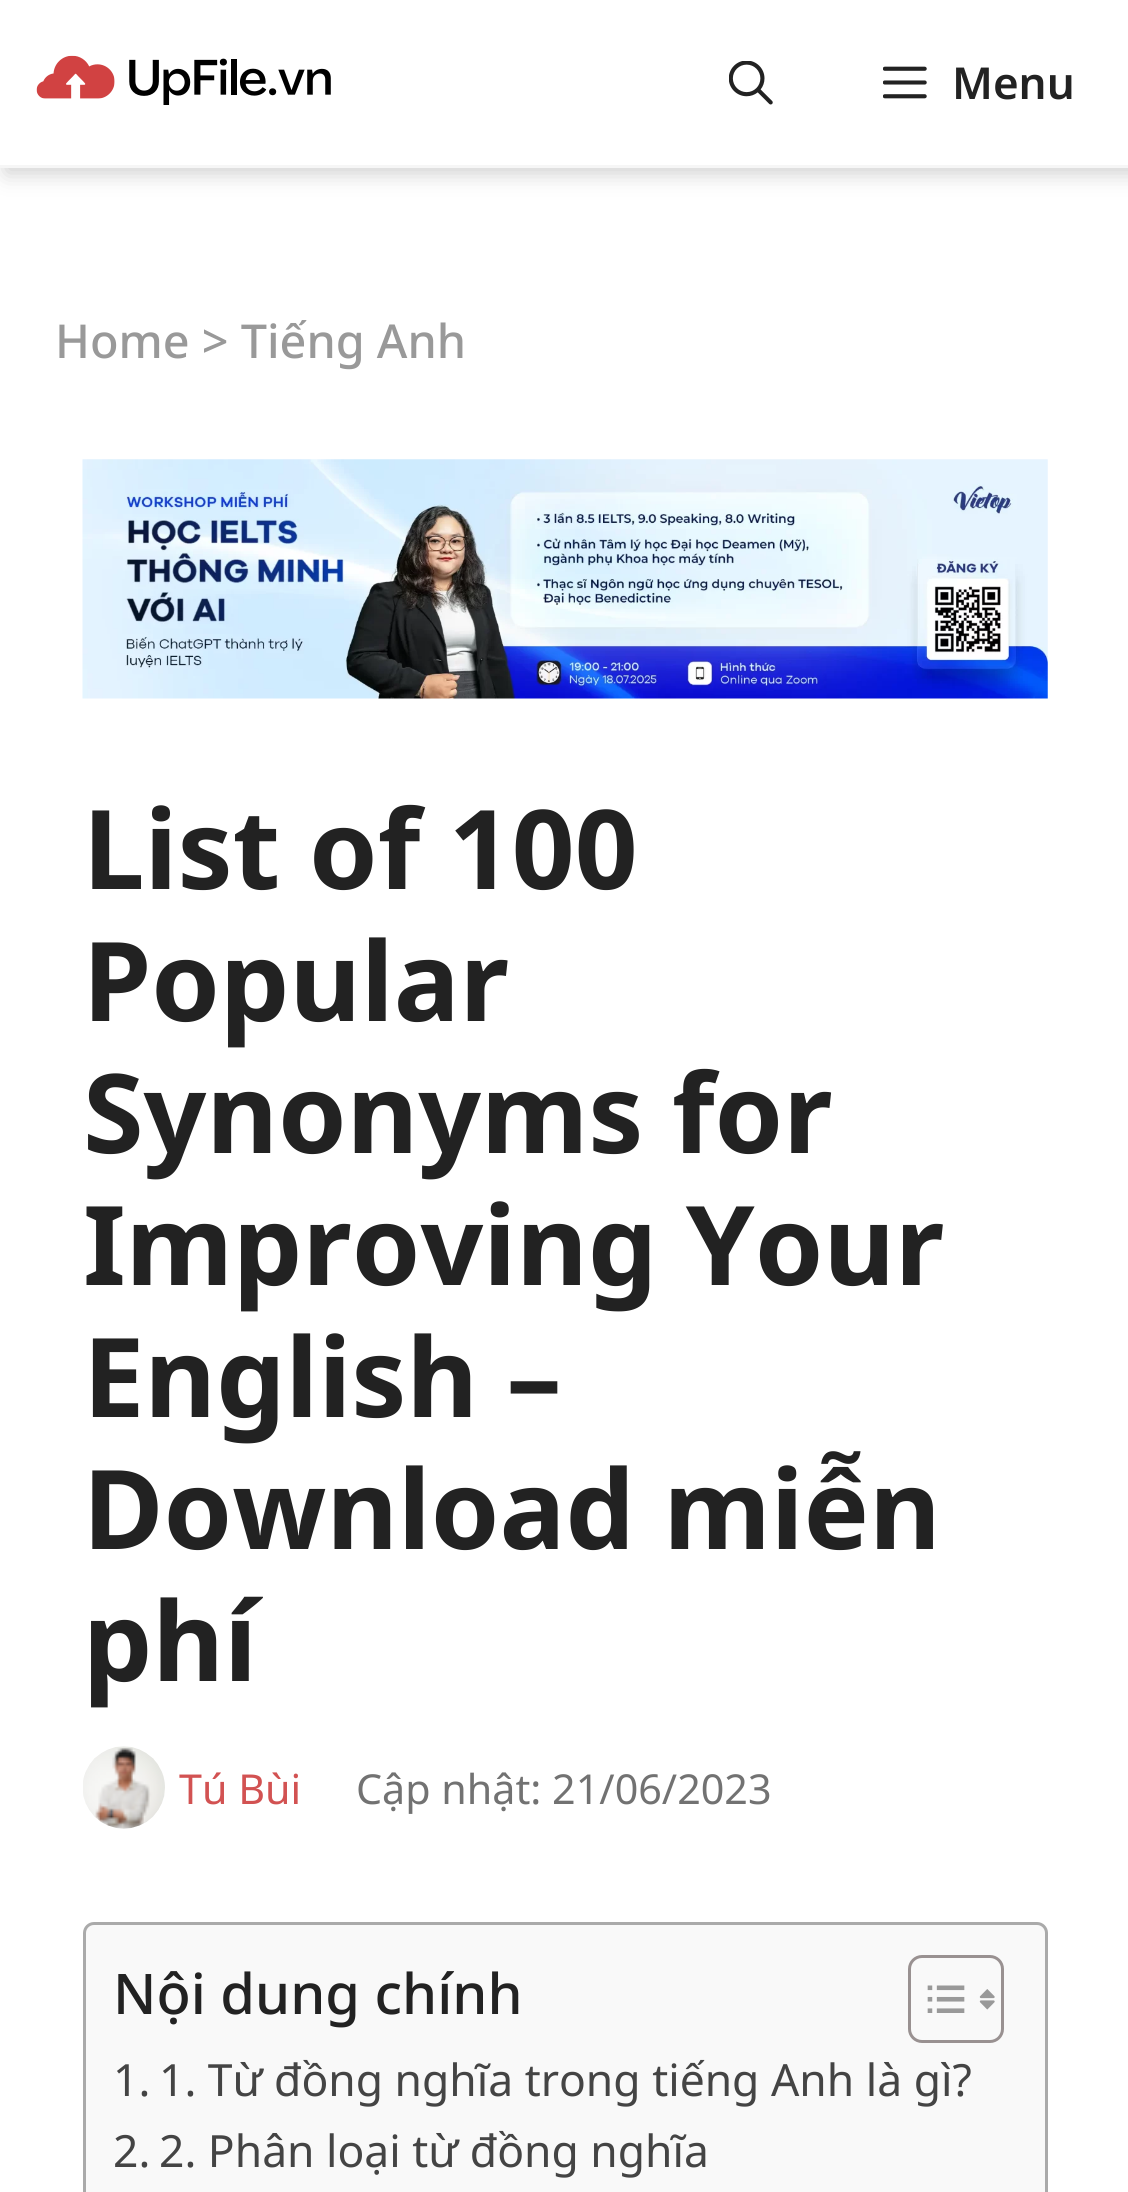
import math
import cairo

surface = cairo.ImageSurface(cairo.FORMAT_RGB24, 1128, 2192)
cr = cairo.Context(surface)
options = cairo.FontOptions()
options.set_hint_metrics(cairo.HINT_METRICS_OFF)
options.set_hint_style(cairo.HINT_STYLE_NONE)
cr.set_font_options(options)
cr.set_miter_limit(4)


def rgb(code):
    cr.set_source_rgb(*(v / 255 for v in bytes.fromhex(code[-6:])))


def rrect(x, y, w, h, r):
    cr.new_sub_path()
    for i, (u, v) in enumerate([(x + w - r, y + h - r), (x + r, y + h - r), (x + r, y + r), (x + w - r, y + r)]):
        cr.arc(u, v, r, i * math.pi / 2, (i + 1) * math.pi / 2)
    cr.close_path()


def soft_shadow(x, y, w, h, r, blur, alpha):
    cr.push_group_with_content(cairo.CONTENT_ALPHA)
    cr.set_operator(cairo.OPERATOR_SOURCE)
    for i in range(15, -16, -2):
        e = blur * i / 6
        if min(w, h) + 2 * e > 0:
            cr.set_source_rgba(0, 0, 0, alpha * math.erfc((i - 1) / 8.5) / 2)
            rrect(x - e, y - e, w + 2 * e, h + 2 * e, max(0, min(r + e + blur * .6, min(w, h) / 2 + e)))
            cr.fill()
    cr.mask(cr.pop_group())


def image(path, x, y, w, h):
    cr.save()
    cr.set_source_surface(cairo.ImageSurface.create_from_png(path), x, y)
    cr.rectangle(x, y, w, h)
    cr.fill()
    cr.restore()


rgb("#ffffff")
cr.paint()
rgb("#cecece")
soft_shadow(6, 6, 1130, 167, 0, 11, 1)
rgb("#ffffff")
cr.rectangle(0, 0, 1128, 165)
cr.fill()
rgb("#f6f6f6")
cr.rectangle(0, 165, 1128, 3)
cr.fill()
image("img/1.png", 36, 55, 295, 50)
image("img/2.png", 729, 61, 44, 44)
image("img/3.png", 883, 66, 44, 33)
image("img/4.png", 82, 459, 966, 240)
image("img/5.png", 83, 1746, 82, 83)
rgb("#f9f9f9")
rrect(84.5, 1923.5, 962, 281, 9.5)
cr.fill_preserve()
rgb("#aaaaaa")
cr.set_line_width(3)
cr.stroke()
rrect(909.5, 1956.5, 93, 85, 12.5)
rgb("#999191")
cr.stroke()
image("img/6.png", 927, 1985, 38, 28)
image("img/7.png", 979, 1989, 16, 21)
cr.select_font_face("Noto Sans SemiBold")
cr.set_font_size(44)
rgb("#222222")
cr.move_to(952, 99)
cr.show_text("Menu")
cr.select_font_face("Noto Sans Medium")
cr.set_font_size(46.75)
rgb("#999999")
cr.move_to(55, 358)
cr.show_text("Home > Tiếng Anh")
cr.select_font_face("Noto Sans", cairo.FONT_SLANT_NORMAL, cairo.FONT_WEIGHT_BOLD)
cr.set_font_size(110)
rgb("#222222")
for x, y, s in [
    (83, 889, "List of 100"),
    (83, 1021, "Popular"),
    (83, 1153, "Synonyms for"),
    (83, 1285, "Improving Your"),
    (83, 1417, "English –"),
    (83, 1549, "Download miễn"),
    (83, 1681, "phí"),
]:
    cr.move_to(x, y)
    cr.show_text(s)
cr.select_font_face("Noto Sans")
cr.set_font_size(41.25)
rgb("#d25252")
cr.move_to(179, 1804)
cr.show_text("Tú Bùi")
rgb("#727272")
cr.move_to(356, 1804)
cr.show_text("Cập nhật: 21/06/2023")
cr.select_font_face("Noto Sans Medium")
cr.set_font_size(56)
rgb("#222222")
cr.move_to(113, 2014)
cr.show_text("Nội dung chính")
cr.select_font_face("Noto Sans")
cr.set_font_size(44.4)
rgb("#444444")
for x, y, s in [
    (113, 2096, "1."),
    (159, 2096, "1. Từ đồng nghĩa trong tiếng Anh là gì?"),
    (113, 2167, "2."),
    (159, 2167, "2. Phân loại từ đồng nghĩa"),
]:
    cr.move_to(x, y)
    cr.show_text(s)
surface.write_to_png("page.png")
